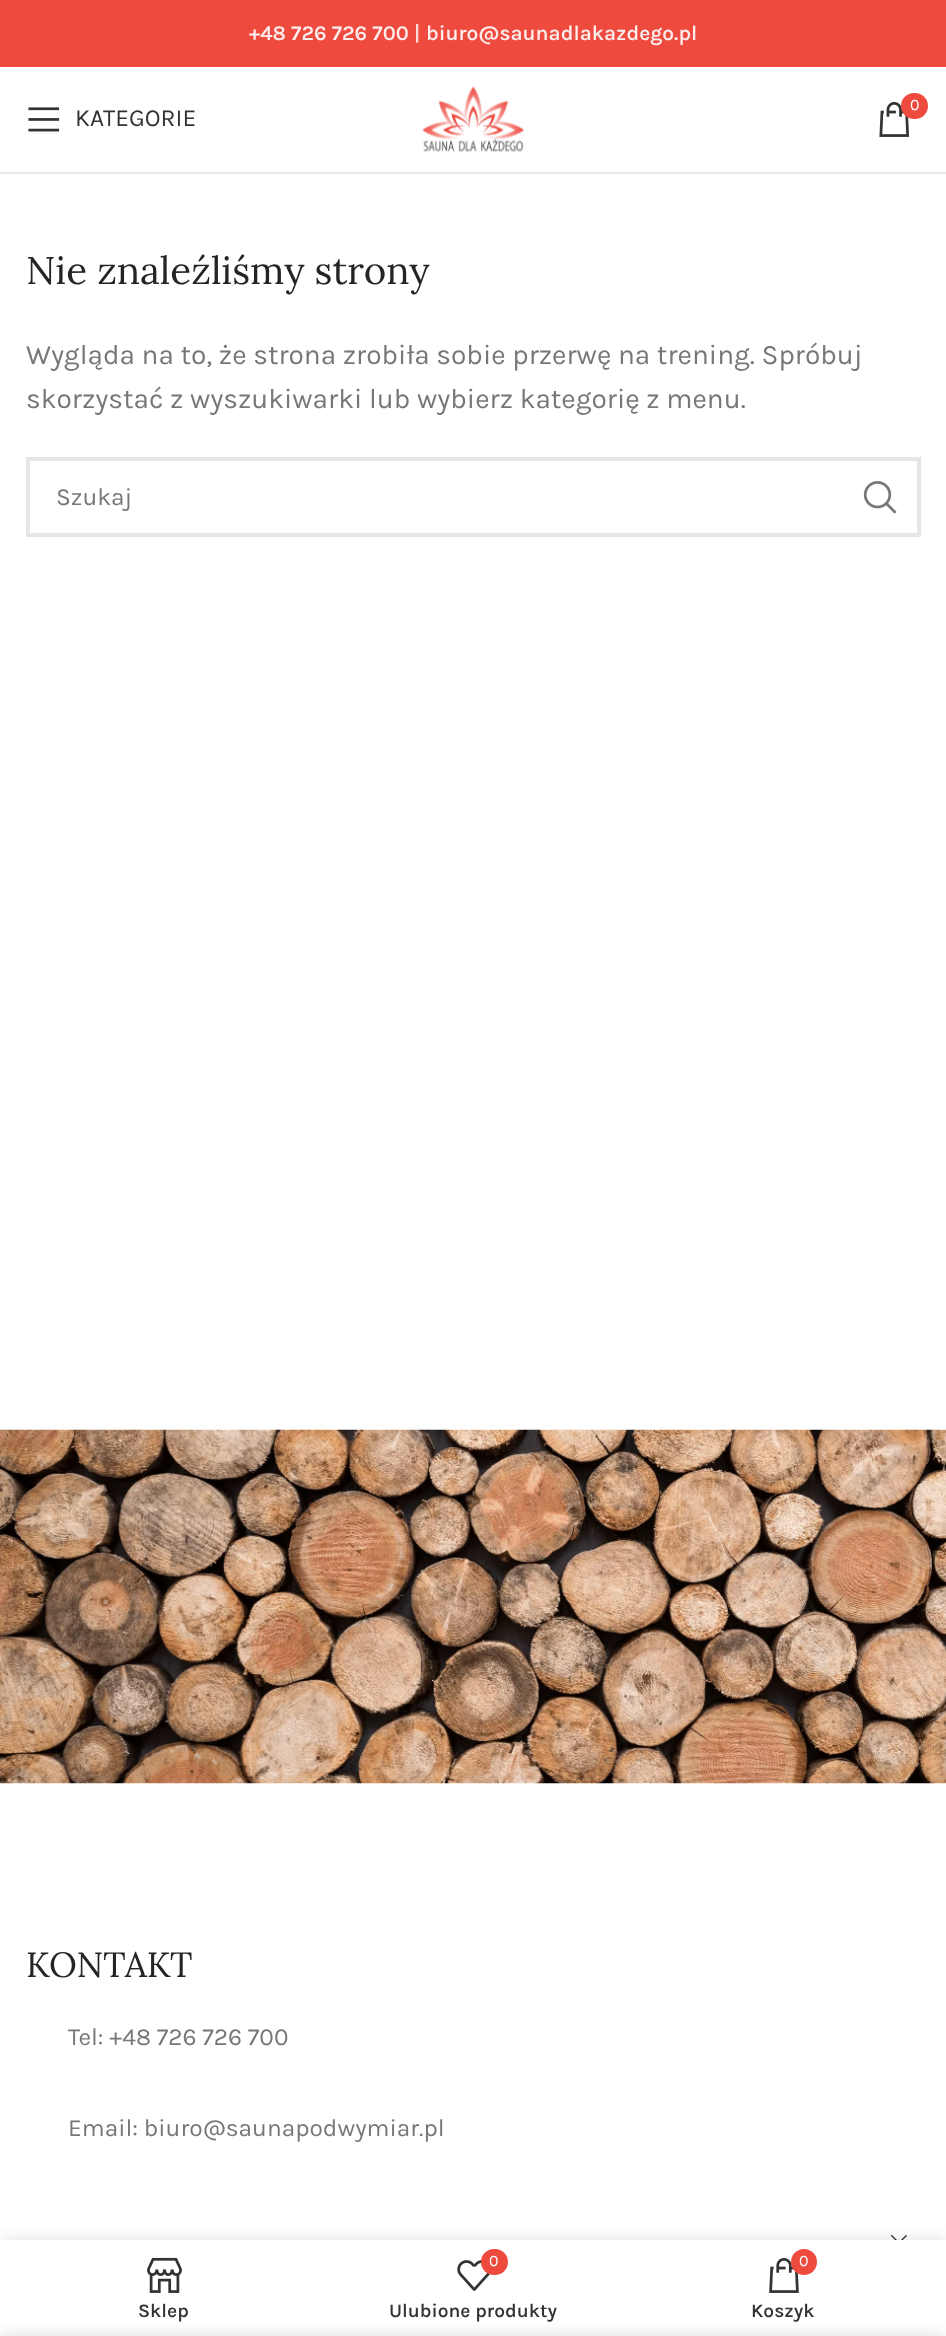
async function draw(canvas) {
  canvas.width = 946
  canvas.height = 2336
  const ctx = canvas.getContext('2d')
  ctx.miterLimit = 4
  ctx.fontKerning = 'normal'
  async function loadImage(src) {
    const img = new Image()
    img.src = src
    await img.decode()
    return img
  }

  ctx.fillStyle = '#fff'
  ctx.fillRect(0, 0, 946, 2336)
  ctx.fillStyle = '#ee4a3e'
  ctx.fillRect(0, 0, 946, 67)
  ctx.font = '600 21px Karla'
  ctx.fillStyle = '#fdedec'
  ctx.fillText('+48 726 726 700', 249, 40)
  ctx.fillStyle = '#fcdbd8'
  ctx.fillText('|', 414, 40)
  ctx.fillStyle = '#fdedec'
  ctx.fillText('biuro@saunadlakazdego.pl', 426, 40)
  ctx.fillStyle = '#e8e8e8'
  ctx.fillRect(0, 172, 946, 2)
  ctx.drawImage(await loadImage('image0.png'), 422, 86, 102, 66)
  ctx.drawImage(await loadImage('image1.png'), 879, 101, 31, 36)
  ctx.fillStyle = '#ee4a3e'
  ctx.beginPath()
  ctx.roundRect(901, 93, 27, 26, 13)
  ctx.fill()
  ctx.font = '16px Karla'
  ctx.fillStyle = '#fff'
  ctx.fillText('0', 910, 110)
  ctx.drawImage(await loadImage('image2.png'), 28, 107, 32, 25)
  ctx.font = '24.5px Karla'
  ctx.fillStyle = '#333'
  ctx.fillText('KATEGORIE', 75, 126)
  ctx.font = '38.5px Lora'
  ctx.fillStyle = '#242424'
  ctx.fillText('Nie znaleźliśmy strony', 26, 284)
  ctx.font = '28px Karla'
  ctx.fillStyle = '#777'
  ctx.fillText('Wygląda na to, że strona zrobiła sobie przerwę na trening. Spróbuj', 26, 364)
  ctx.fillText('skorzystać z wyszukiwarki lub wybierz kategorię z menu.', 26, 408)
  ctx.strokeStyle = '#e6e6e6'
  ctx.lineWidth = 4
  ctx.strokeRect(28, 459, 891, 76)
  ctx.font = '24.5px Karla'
  ctx.fillText('Szukaj', 56, 505)
  ctx.drawImage(await loadImage('image3.png'), 863, 481, 34, 33)
  ctx.drawImage(await loadImage('image4.png'), 0, 1429, 946, 355)
  ctx.font = '35px Lora'
  ctx.fillStyle = '#242424'
  ctx.fillText('KONTAKT', 26, 1977)
  ctx.font = '24.5px Karla'
  ctx.fillStyle = '#777'
  ctx.fillText('Tel: +48 726 726 700', 68, 2045)
  ctx.fillText('Email: biuro@saunapodwymiar.pl', 68, 2136)
  ctx.drawImage(await loadImage('image5.png'), 890, 2234, 17, 6)
  ctx.fillStyle = '#0000001f'
  ctx.filter = 'blur(8px)'
  ctx.beginPath()
  ctx.rect(0, 2240, 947, 96)
  ctx.fill()
  ctx.filter = 'none'
  ctx.fillStyle = '#fff'
  ctx.fillRect(0, 2240, 946, 96)
  ctx.drawImage(await loadImage('image6.png'), 147, 2257, 35, 36)
  ctx.font = '600 19.25px Karla'
  ctx.fillStyle = '#333'
  ctx.fillText('Sklep', 138, 2317)
  ctx.drawImage(await loadImage('image7.png'), 457, 2260, 33, 31)
  ctx.fillStyle = '#ee4a3e'
  ctx.beginPath()
  ctx.roundRect(481, 2249, 27, 26, 13)
  ctx.fill()
  ctx.font = '16px Karla'
  ctx.fillStyle = '#fff'
  ctx.fillText('0', 489, 2266)
  ctx.font = '600 19.25px Karla'
  ctx.fillStyle = '#333'
  ctx.fillText('Ulubione produkty', 389, 2317)
  ctx.drawImage(await loadImage('image8.png'), 769, 2258, 30, 35)
  ctx.fillStyle = '#ee4a3e'
  ctx.beginPath()
  ctx.arc(804, 2262, 13, 0, 2 * Math.PI)
  ctx.fill()
  ctx.font = '16px Karla'
  ctx.fillStyle = '#fff'
  ctx.fillText('0', 799, 2266)
  ctx.font = '600 19.25px Karla'
  ctx.fillStyle = '#333'
  ctx.fillText('Koszyk', 751, 2317)
  ctx.fillStyle = '#00000024'
  ctx.filter = 'blur(8px)'
  ctx.beginPath()
  ctx.rect(0, 2336, 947, 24)
  ctx.fill()
  ctx.filter = 'none'
}

draw(document.querySelector('canvas'))
